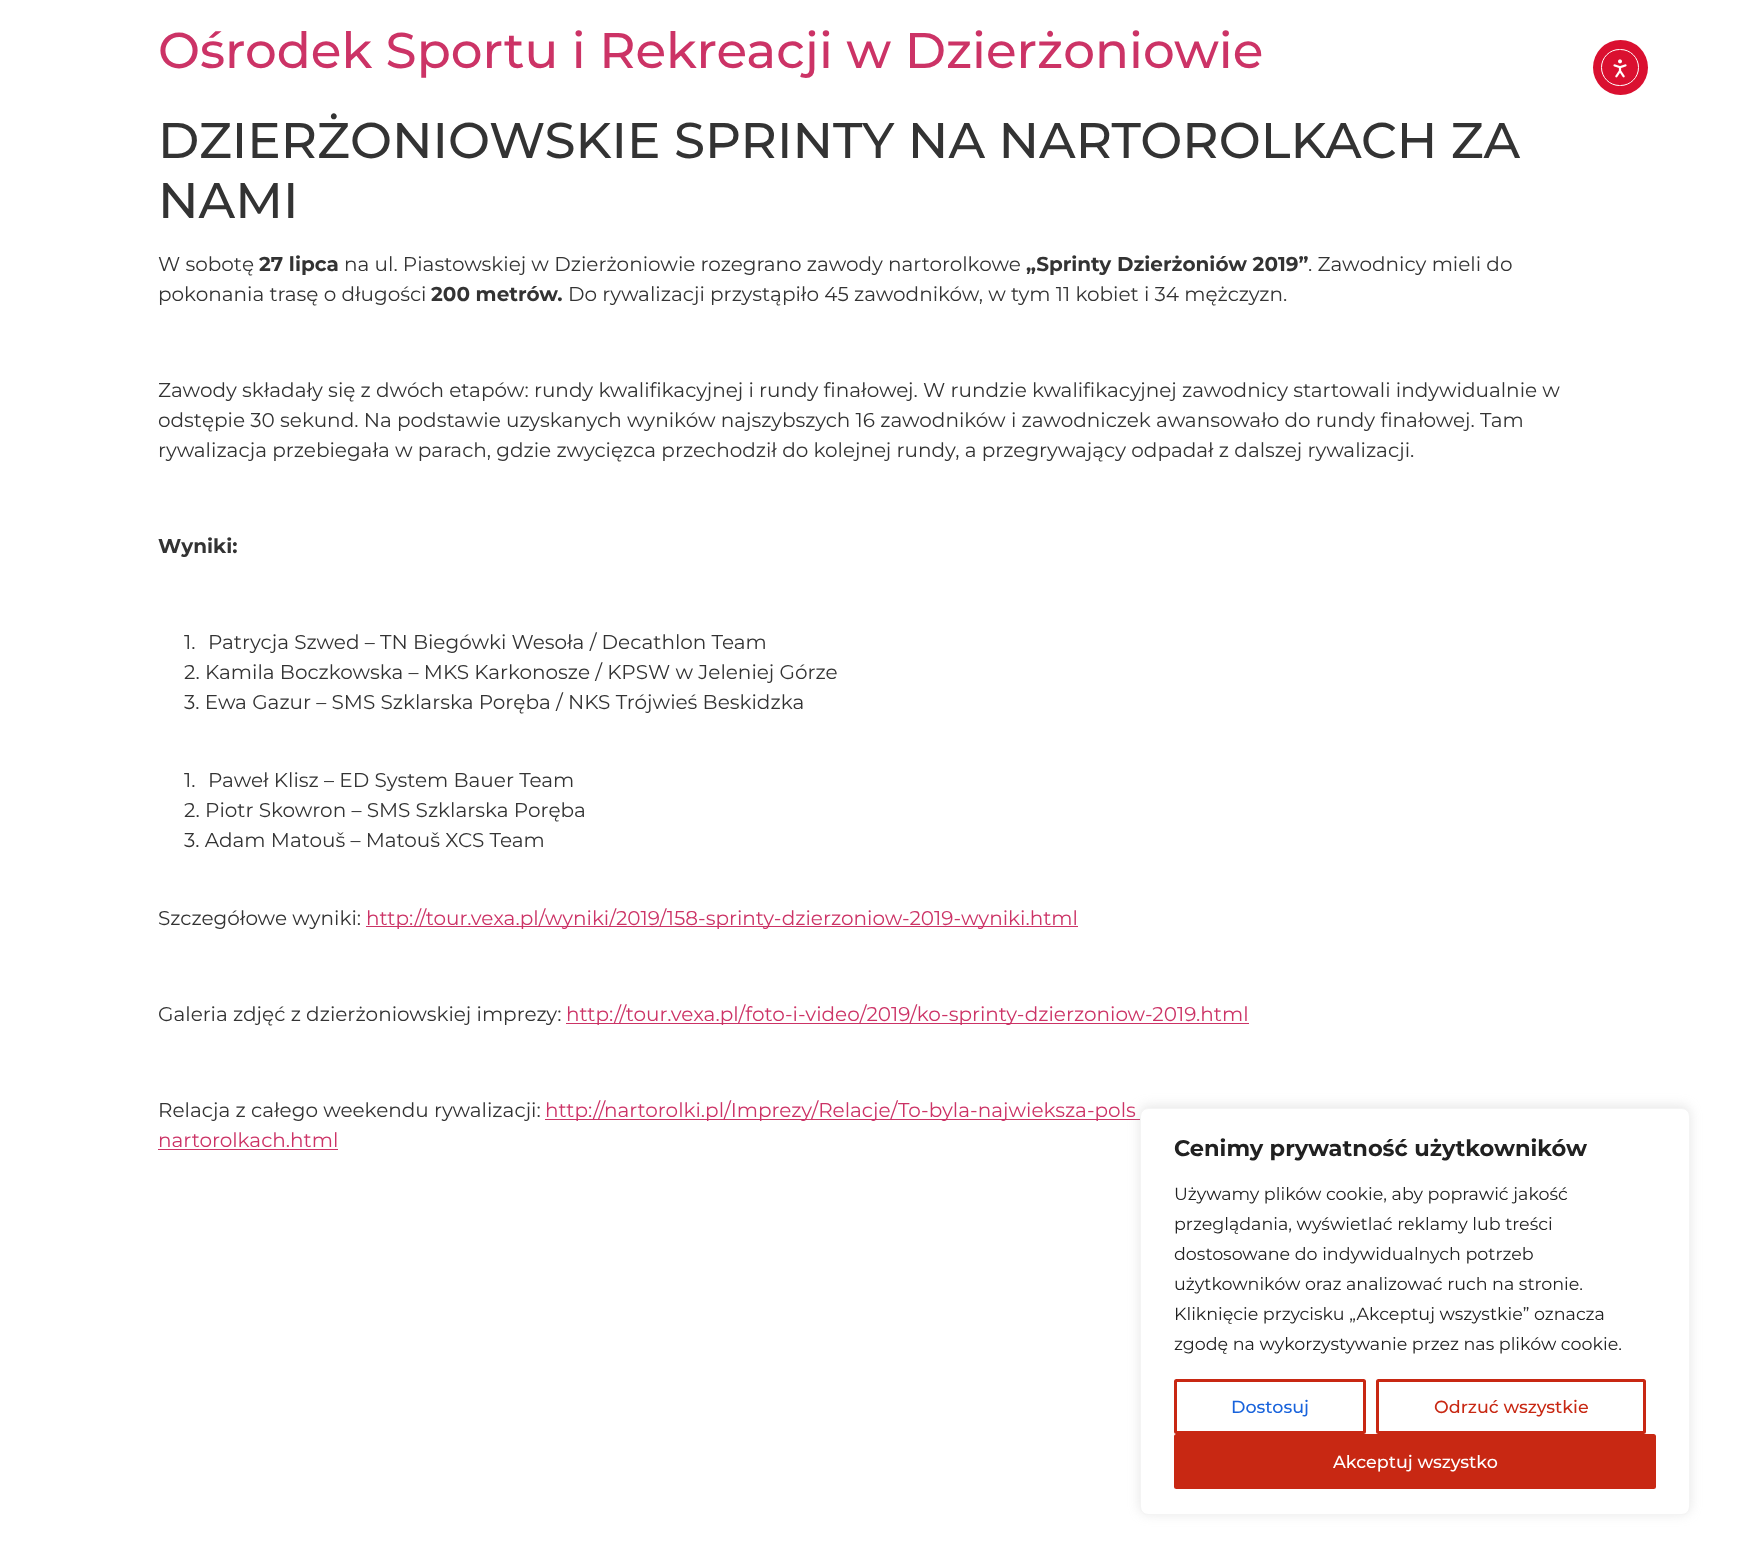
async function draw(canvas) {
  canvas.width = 1740
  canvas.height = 1564
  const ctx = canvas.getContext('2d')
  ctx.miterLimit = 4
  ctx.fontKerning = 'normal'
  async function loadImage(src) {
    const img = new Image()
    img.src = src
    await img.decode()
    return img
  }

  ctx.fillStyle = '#fff'
  ctx.fillRect(0, 0, 1740, 1564)
  ctx.font = '500 50px Montserrat'
  ctx.fillStyle = '#c36'
  ctx.fillText('Ośrodek Sportu i Rekreacji w Dzierżoniowie', 158, 68)
  ctx.fillStyle = '#da1030'
  ctx.beginPath()
  ctx.arc(1620.5, 67.5, 27.5, 0, 2 * Math.PI)
  ctx.fill()
  ctx.beginPath()
  ctx.roundRect(1601.5, 49.5, 37, 36, 18)
  ctx.strokeStyle = '#fff'
  ctx.stroke()
  ctx.drawImage(await loadImage('image0.png'), 1613, 59, 14, 19)
  ctx.fillStyle = '#333'
  ctx.fillText('DZIERŻONIOWSKIE SPRINTY NA NARTOROLKACH ZA', 158, 158)
  ctx.fillText('NAMI', 158, 218)
  ctx.font = '20px Montserrat'
  ctx.fillText('W sobotę', 158, 271)
  ctx.font = 'bold 20px Montserrat'
  ctx.fillText('27 lipca', 259, 271)
  ctx.font = '20px Montserrat'
  ctx.fillText('na ul. Piastowskiej w Dzierżoniowie rozegrano zawody nartorolkowe', 344, 271)
  ctx.font = 'bold 20px Montserrat'
  ctx.fillText('„Sprinty Dzierżoniów 2019”', 1026, 271)
  ctx.font = '20px Montserrat'
  ctx.fillText('. Zawodnicy mieli do', 1308, 271)
  ctx.fillText('pokonania trasę o długości', 158, 301)
  ctx.font = 'bold 20px Montserrat'
  ctx.fillText('200 metrów.', 431, 301)
  ctx.font = '20px Montserrat'
  ctx.fillText('Do rywalizacji przystąpiło 45 zawodników, w tym 11 kobiet i 34 mężczyzn.', 568, 301)
  ctx.fillText('Zawody składały się z dwóch etapów: rundy kwalifikacyjnej i rundy finałowej. W rundzie kwalifikacyjnej zawodnicy startowali indywidualnie w', 158, 397)
  ctx.fillText('odstępie 30 sekund. Na podstawie uzyskanych wyników najszybszych 16 zawodników i zawodniczek awansowało do rundy finałowej. Tam', 158, 427)
  ctx.fillText('rywalizacja przebiegała w parach, gdzie zwycięzca przechodził do kolejnej rundy, a przegrywający odpadał z dalszej rywalizacji.', 158, 457)
  ctx.font = 'bold 20px Montserrat'
  ctx.fillText('Wyniki:', 158, 553)
  ctx.font = '20px Montserrat'
  ctx.fillText('1.', 184, 649)
  ctx.fillText('Patrycja Szwed – TN Biegówki Wesoła / Decathlon Team', 208, 649)
  ctx.fillText('2. Kamila Boczkowska – MKS Karkonosze / KPSW w Jeleniej Górze', 184, 679)
  ctx.fillText('3. Ewa Gazur – SMS Szklarska Poręba / NKS Trójwieś Beskidzka', 184, 709)
  ctx.fillText('1.', 184, 787)
  ctx.fillText('Paweł Klisz – ED System Bauer Team', 208, 787)
  ctx.fillText('2. Piotr Skowron – SMS Szklarska Poręba', 184, 817)
  ctx.fillText('3. Adam Matouš – Matouš XCS Team', 184, 847)
  ctx.fillText('Szczegółowe wyniki:', 158, 925)
  ctx.fillStyle = '#c36'
  ctx.fillRect(366, 926, 712, 1)
  ctx.fillText('http://tour.vexa.pl/wyniki/2019/158-sprinty-dzierzoniow-2019-wyniki.html', 366, 925)
  ctx.fillStyle = '#333'
  ctx.fillText('Galeria zdjęć z dzierżoniowskiej imprezy:', 158, 1021)
  ctx.fillStyle = '#c36'
  ctx.fillRect(566, 1023, 683, 1)
  ctx.fillText('http://tour.vexa.pl/foto-i-video/2019/ko-sprinty-dzierzoniow-2019.html', 566, 1021)
  ctx.fillStyle = '#333'
  ctx.fillText('Relacja z całego weekendu rywalizacji:', 158, 1117)
  ctx.fillStyle = '#c36'
  ctx.fillRect(545, 1119, 595, 1)
  ctx.fillText('http://nartorolki.pl/Imprezy/Relacje/To-byla-najwieksza-pols', 545, 1117)
  ctx.fillText('nartorolkach.html', 158, 1147)
  ctx.fillRect(158, 1149, 180, 1)
  ctx.fillStyle = '#acabab4d'
  ctx.filter = 'blur(6px)'
  ctx.beginPath()
  ctx.roundRect(1140, 1106, 550, 408, 8)
  ctx.fill()
  ctx.filter = 'none'
  ctx.fillStyle = '#fff'
  ctx.beginPath()
  ctx.roundRect(1140.5, 1108.5, 549, 406, 7.5)
  ctx.fill()
  ctx.strokeStyle = '#f4f4f4'
  ctx.stroke()
  ctx.font = 'bold 22.5px Montserrat'
  ctx.fillStyle = '#212121'
  ctx.fillText('Cenimy prywatność użytkowników', 1174, 1156)
  ctx.font = '17.5px Montserrat'
  ctx.fillText('Używamy plików cookie, aby poprawić jakość', 1174, 1200)
  ctx.fillText('przeglądania, wyświetlać reklamy lub treści', 1174, 1230)
  ctx.fillText('dostosowane do indywidualnych potrzeb', 1174, 1260)
  ctx.fillText('użytkowników oraz analizować ruch na stronie.', 1174, 1290)
  ctx.fillText('Kliknięcie przycisku „Akceptuj wszystkie” oznacza', 1174, 1320)
  ctx.fillText('zgodę na wykorzystywanie przez nas plików cookie.', 1174, 1350)
  ctx.beginPath()
  ctx.roundRect(1175.5, 1380.5, 189, 52, 1)
  ctx.strokeStyle = '#c82813'
  ctx.lineWidth = 3
  ctx.stroke()
  ctx.font = '500 17.5px Montserrat'
  ctx.fillStyle = '#1863dc'
  ctx.fillText('Dostosuj', 1231, 1413)
  ctx.beginPath()
  ctx.roundRect(1377.5, 1380.5, 267, 52, 1)
  ctx.stroke()
  ctx.fillStyle = '#c82813'
  ctx.fillText('Odrzuć wszystkie', 1434, 1413)
  ctx.beginPath()
  ctx.roundRect(1175.5, 1435.5, 479, 52, 1)
  ctx.fill()
  ctx.stroke()
  ctx.fillStyle = '#fff'
  ctx.fillText('Akceptuj wszystko', 1333, 1468)
}

draw(document.querySelector('canvas'))
